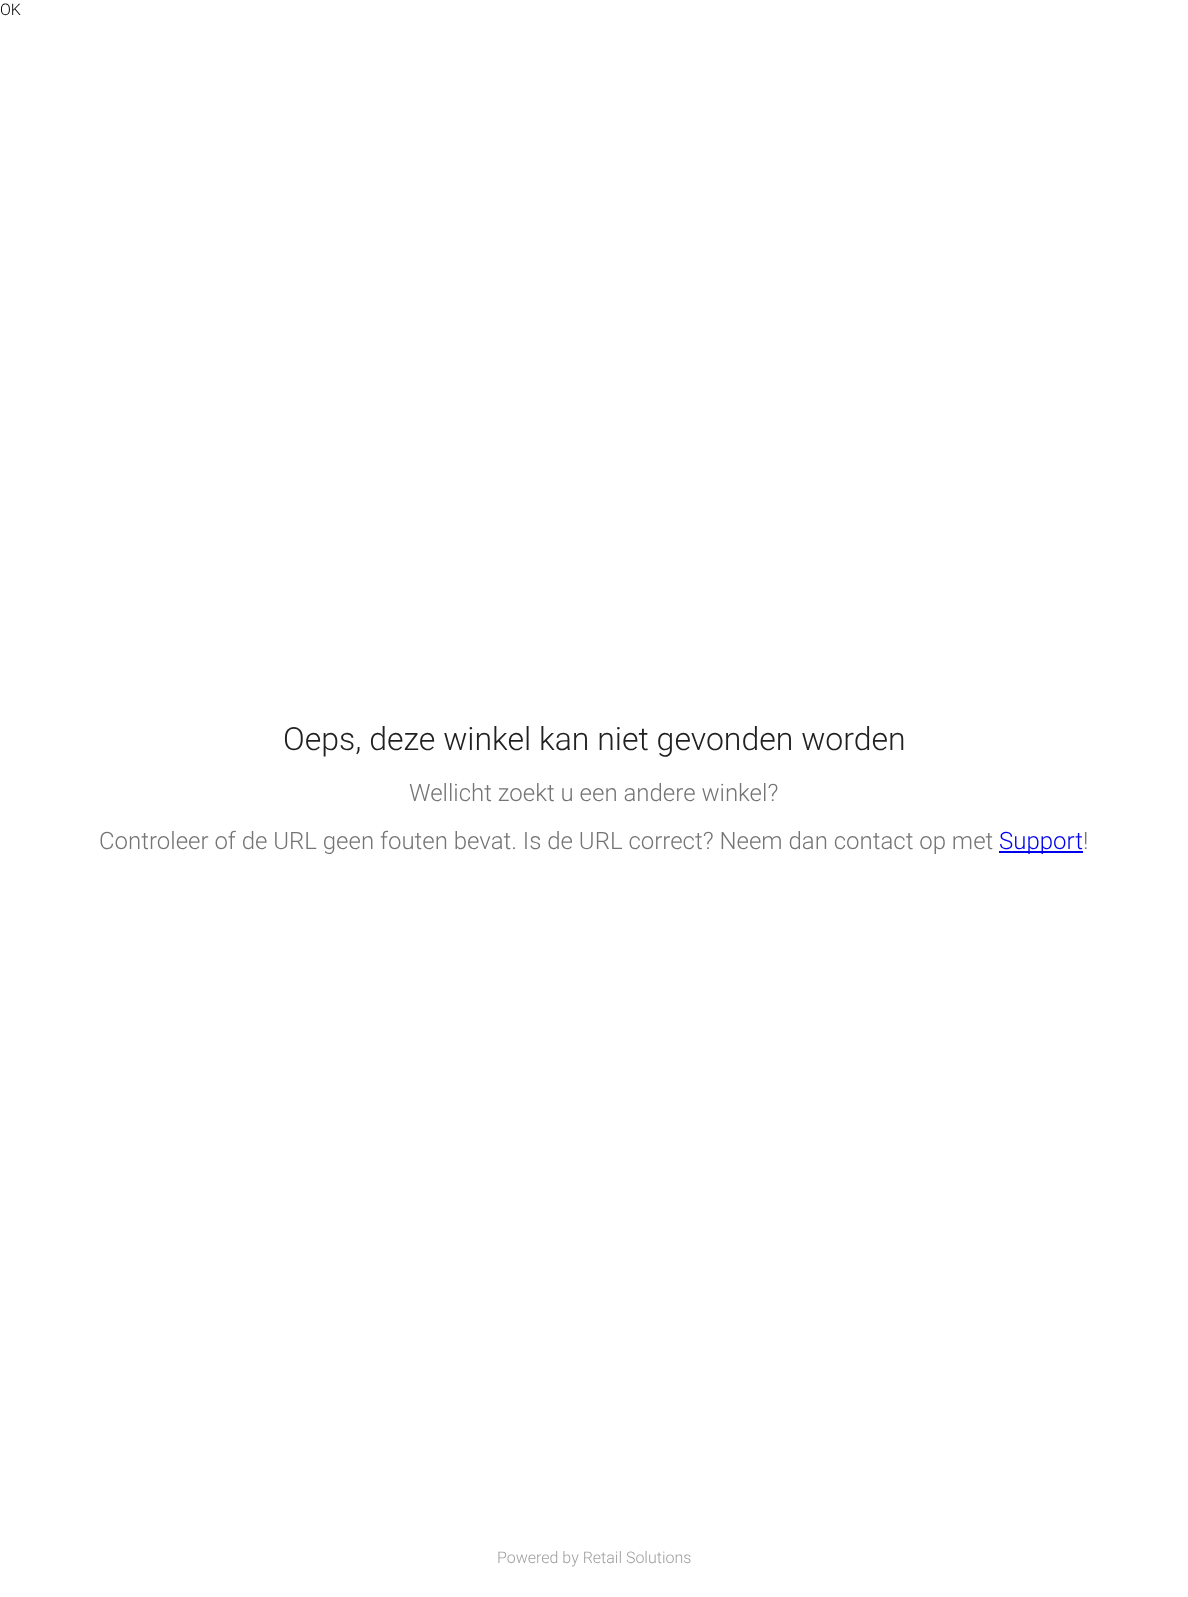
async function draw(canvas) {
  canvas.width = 1188
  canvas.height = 1597
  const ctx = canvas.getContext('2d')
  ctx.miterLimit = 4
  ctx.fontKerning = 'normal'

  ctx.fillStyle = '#fff'
  ctx.fillRect(0, 0, 1188, 1597)
  ctx.font = '300 16px Roboto'
  ctx.fillStyle = '#000'
  ctx.fillText('OK', 0, 15)
  ctx.font = '300 32px Roboto'
  ctx.fillStyle = '#212121'
  ctx.fillText('Oeps, deze winkel kan niet gevonden worden', 283, 750)
  ctx.font = '300 24px Roboto'
  ctx.fillStyle = '#757575'
  ctx.fillText('Wellicht zoekt u een andere winkel?', 409, 801)
  ctx.fillText('Controleer of de URL geen fouten bevat. Is de URL correct? Neem dan contact op met', 99, 849)
  ctx.fillStyle = '#00e'
  ctx.fillRect(999, 851, 84, 2)
  ctx.fillText('Support', 999, 849)
  ctx.fillStyle = '#757575'
  ctx.fillText('!', 1083, 849)
  ctx.font = '300 16px Roboto'
  ctx.fillStyle = '#9e9e9e'
  ctx.fillText('Powered by Retail Solutions', 497, 1563)
}

draw(document.querySelector('canvas'))
